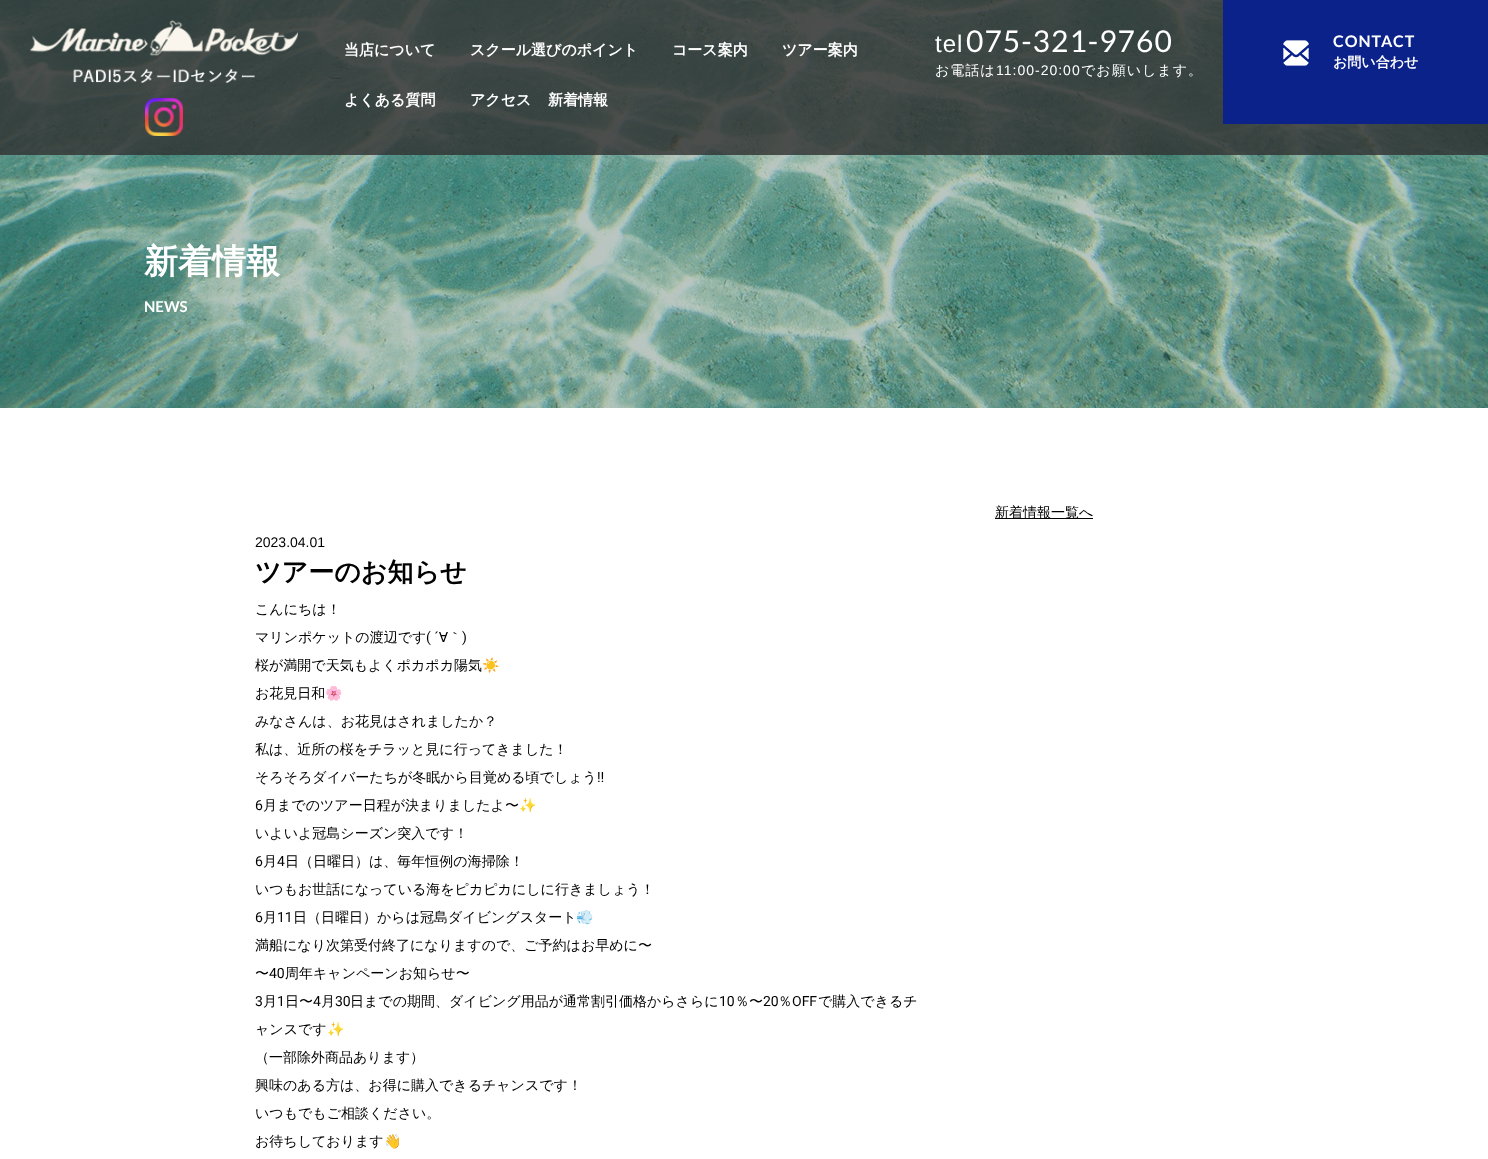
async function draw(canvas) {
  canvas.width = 1488
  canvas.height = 1159
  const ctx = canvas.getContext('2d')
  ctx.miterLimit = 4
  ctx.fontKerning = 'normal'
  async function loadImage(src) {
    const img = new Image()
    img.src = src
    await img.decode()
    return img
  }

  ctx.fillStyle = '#fff'
  ctx.fillRect(0, 0, 1488, 1159)
  ctx.drawImage(await loadImage('image3.png'), 0, 0, 1488, 408)
  ctx.fillStyle = '#2f2f2fcc'
  ctx.fillRect(0, 0, 1488, 155)
  ctx.drawImage(await loadImage('image0.png'), 30, 20, 268, 63)
  ctx.drawImage(await loadImage('image1.png'), 145, 98, 38, 38)
  ctx.font = 'bold 15px WenQuanYi Zen Hei'
  ctx.fillStyle = '#fff'
  ctx.fillText('当店について', 344, 55)
  ctx.fillText('スクール選びのポイント', 470, 55)
  ctx.fillText('コース案内', 672, 55)
  ctx.fillText('ツアー案内', 782, 55)
  ctx.fillText('よくある質問', 344, 105)
  ctx.fillText('アクセス', 470, 105)
  ctx.fillText('新着情報', 548, 105)
  ctx.letterSpacing = '1px'
  ctx.font = '24px Liberation Sans'
  ctx.fillText('tel', 935, 52)
  ctx.font = '30px Lato'
  ctx.fillText('075-321-9760', 966, 52)
  ctx.font = '500 14px WenQuanYi Zen Hei'
  ctx.fillText('お電話は', 935, 75)
  ctx.font = '14px Liberation Sans'
  ctx.fillText('11:00-20:00', 996, 75)
  ctx.font = '500 14px WenQuanYi Zen Hei'
  ctx.fillText('でお願いします。', 1081, 75)
  ctx.fillStyle = '#0b228a'
  ctx.fillRect(1223, 0, 265, 124)
  ctx.drawImage(await loadImage('image2.png'), 1283, 40, 26, 26)
  ctx.font = 'bold 16px Lato'
  ctx.fillStyle = '#fff'
  ctx.fillText('CONTACT', 1333, 47)
  ctx.letterSpacing = '0px'
  ctx.font = 'bold 14px WenQuanYi Zen Hei'
  ctx.fillText('お問い合わせ', 1333, 67)
  ctx.font = 'bold 34px WenQuanYi Zen Hei'
  ctx.fillText('新着情報', 144, 273)
  ctx.font = 'bold 15px Lato'
  ctx.fillText('NEWS', 144, 312)
  ctx.fillStyle = '#000'
  ctx.fillRect(995, 518, 98, 1)
  ctx.font = '500 14px WenQuanYi Zen Hei'
  ctx.fillText('新着情報一覧へ', 995, 517)
  ctx.font = '14px Liberation Sans'
  ctx.fillText('2023.04.01', 255, 547)
  ctx.font = 'bold 26px WenQuanYi Zen Hei'
  ctx.fillText('ツアーのお知らせ', 255, 581)
  ctx.font = '500 14px WenQuanYi Zen Hei'
  ctx.fillText('こんにちは！', 255, 614)
  ctx.fillText('マリンポケットの渡辺です', 255, 642)
  ctx.font = '14px Roboto'
  ctx.fillText('( ´', 426, 642)
  ctx.font = '500 14px WenQuanYi Zen Hei'
  ctx.fillText('∀｀', 439, 642)
  ctx.font = '14px Roboto'
  ctx.fillText(')', 462, 642)
  ctx.font = '500 14px WenQuanYi Zen Hei'
  ctx.fillText('桜が満開で天気もよくポカポカ陽気', 255, 670)
  ctx.font = '14px Noto Color Emoji'
  ctx.fillText('☀️', 482, 670)
  ctx.font = '500 14px WenQuanYi Zen Hei'
  ctx.fillText('お花見日和', 255, 698)
  ctx.font = '14px Noto Color Emoji'
  ctx.fillText('🌸', 325, 698)
  ctx.font = '500 14px WenQuanYi Zen Hei'
  ctx.fillText('みなさんは、お花見はされましたか？', 255, 726)
  ctx.fillText('私は、近所の桜をチラッと見に行ってきました！', 255, 754)
  ctx.fillText('そろそろダイバーたちが冬眠から目覚める頃でしょう', 255, 782)
  ctx.font = '14px Roboto'
  ctx.fillText('‼︎', 597, 782)
  ctx.fillText('6', 255, 810)
  ctx.font = '500 14px WenQuanYi Zen Hei'
  ctx.fillText('月までのツアー日程が決まりましたよ〜', 263, 810)
  ctx.font = '14px Noto Color Emoji'
  ctx.fillText('✨', 519, 810)
  ctx.font = '500 14px WenQuanYi Zen Hei'
  ctx.fillText('いよいよ冠島シーズン突入です！', 255, 838)
  ctx.font = '14px Roboto'
  ctx.fillText('6', 255, 866)
  ctx.font = '500 14px WenQuanYi Zen Hei'
  ctx.fillText('月', 263, 866)
  ctx.font = '14px Roboto'
  ctx.fillText('4', 277, 866)
  ctx.font = '500 14px WenQuanYi Zen Hei'
  ctx.fillText('日（日曜日）は、毎年恒例の海掃除！', 285, 866)
  ctx.fillText('いつもお世話になっている海をピカピカにしに行きましょう！', 255, 894)
  ctx.font = '14px Roboto'
  ctx.fillText('6', 255, 922)
  ctx.font = '500 14px WenQuanYi Zen Hei'
  ctx.fillText('月', 263, 922)
  ctx.font = '14px Roboto'
  ctx.fillText('11', 277, 922)
  ctx.font = '500 14px WenQuanYi Zen Hei'
  ctx.fillText('日（日曜日）からは冠島ダイビングスタート', 293, 922)
  ctx.font = '14px Noto Color Emoji'
  ctx.fillText('💨', 576, 922)
  ctx.font = '500 14px WenQuanYi Zen Hei'
  ctx.fillText('満船になり次第受付終了になりますので、ご予約はお早めに〜', 255, 950)
  ctx.fillText('〜', 255, 978)
  ctx.font = '14px Roboto'
  ctx.fillText('40', 269, 978)
  ctx.font = '500 14px WenQuanYi Zen Hei'
  ctx.fillText('周年キャンペーンお知らせ〜', 285, 978)
  ctx.font = '14px Roboto'
  ctx.fillText('3', 255, 1006)
  ctx.font = '500 14px WenQuanYi Zen Hei'
  ctx.fillText('月', 263, 1006)
  ctx.font = '14px Roboto'
  ctx.fillText('1', 277, 1006)
  ctx.font = '500 14px WenQuanYi Zen Hei'
  ctx.fillText('日〜', 285, 1006)
  ctx.font = '14px Roboto'
  ctx.fillText('4', 313, 1006)
  ctx.font = '500 14px WenQuanYi Zen Hei'
  ctx.fillText('月', 321, 1006)
  ctx.font = '14px Roboto'
  ctx.fillText('30', 335, 1006)
  ctx.font = '500 14px WenQuanYi Zen Hei'
  ctx.fillText('日までの期間、ダイビング用品が通常割引価格からさらに', 350, 1006)
  ctx.font = '14px Roboto'
  ctx.fillText('10', 719, 1006)
  ctx.font = '500 14px WenQuanYi Zen Hei'
  ctx.fillText('％〜', 735, 1006)
  ctx.font = '14px Roboto'
  ctx.fillText('20', 763, 1006)
  ctx.font = '500 14px WenQuanYi Zen Hei'
  ctx.fillText('％', 778, 1006)
  ctx.font = '14px Roboto'
  ctx.fillText('OFF', 792, 1006)
  ctx.font = '500 14px WenQuanYi Zen Hei'
  ctx.fillText('で購入できるチ', 818, 1006)
  ctx.fillText('ャンスです', 255, 1034)
  ctx.font = '14px Noto Color Emoji'
  ctx.fillText('✨', 327, 1034)
  ctx.font = '500 14px WenQuanYi Zen Hei'
  ctx.fillText('（一部除外商品あります）', 255, 1062)
  ctx.fillText('興味のある方は、お得に購入できるチャンスです！', 255, 1090)
  ctx.fillText('いつもでもご相談ください。', 255, 1118)
  ctx.fillText('お待ちしております', 255, 1146)
  ctx.font = '14px Noto Color Emoji'
  ctx.fillText('👋', 384, 1146)
}

draw(document.querySelector('canvas'))
